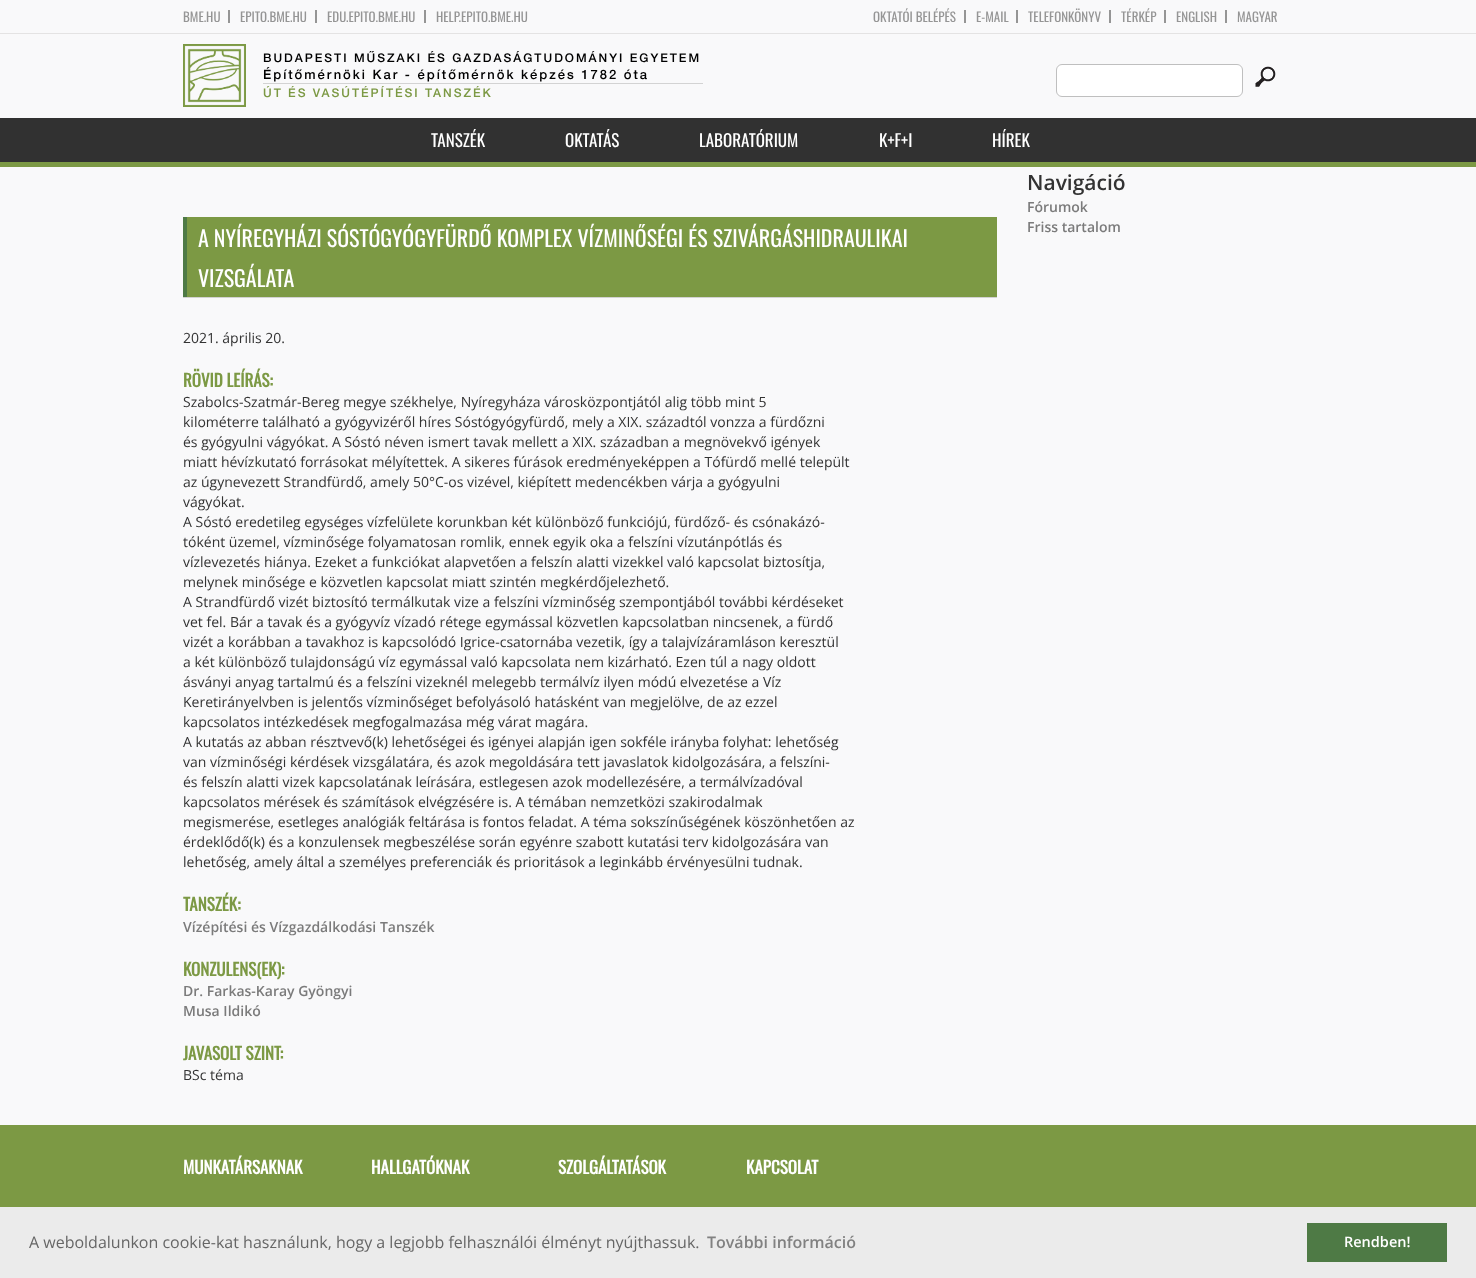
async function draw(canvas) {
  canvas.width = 1476
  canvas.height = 1278
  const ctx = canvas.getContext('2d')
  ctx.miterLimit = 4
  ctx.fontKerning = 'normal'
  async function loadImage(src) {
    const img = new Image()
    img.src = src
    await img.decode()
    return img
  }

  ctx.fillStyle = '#f9f9fa'
  ctx.fillRect(0, 0, 1476, 1278)
  ctx.fillStyle = '#e4e3e3'
  ctx.fillRect(0, 33, 1476, 1)
  ctx.font = '13px Oswald'
  ctx.fillStyle = '#959595'
  ctx.fillText('BME.HU', 183, 22)
  ctx.fillRect(228, 10, 2, 13)
  ctx.fillText('EPITO.BME.HU', 240, 22)
  ctx.fillRect(315, 10, 2, 13)
  ctx.fillText('EDU.EPITO.BME.HU', 327, 22)
  ctx.fillRect(424, 10, 2, 13)
  ctx.fillText('HELP.EPITO.BME.HU', 436, 22)
  ctx.fillText('OKTATÓI BELÉPÉS', 873, 22)
  ctx.fillRect(964, 10, 2, 13)
  ctx.fillText('E-MAIL', 976, 22)
  ctx.fillRect(1016, 10, 2, 13)
  ctx.fillText('TELEFONKÖNYV', 1028, 22)
  ctx.fillRect(1109, 10, 2, 13)
  ctx.fillText('TÉRKÉP', 1121, 22)
  ctx.fillRect(1164, 10, 2, 13)
  ctx.fillText('ENGLISH', 1176, 22)
  ctx.fillRect(1225, 10, 2, 13)
  ctx.fillText('MAGYAR', 1237, 22)
  ctx.drawImage(await loadImage('image0.png'), 183, 44, 63, 63)
  ctx.letterSpacing = '2px'
  ctx.font = '500 12px Helvetica Neue'
  ctx.fillStyle = '#000'
  ctx.fillText('BUDAPESTI MŰSZAKI ÉS GAZDASÁGTUDOMÁNYI EGYETEM', 263, 62)
  ctx.font = '500 13px Helvetica Neue'
  ctx.fillText('Építőmérnöki Kar - építőmérnök képzés 1782 óta', 263, 79)
  ctx.fillStyle = '#d3d3d3'
  ctx.fillRect(263, 83, 440, 1)
  ctx.font = '500 12px Helvetica Neue'
  ctx.fillStyle = '#7c9944'
  ctx.fillText('ÚT ÉS VASÚTÉPÍTÉSI TANSZÉK', 263, 97)
  ctx.fillStyle = '#fff'
  ctx.beginPath()
  ctx.roundRect(1056.5, 64.5, 186, 32, 5.5)
  ctx.fill()
  ctx.strokeStyle = '#bfbfbf'
  ctx.stroke()
  ctx.drawImage(await loadImage('image1.png'), 1255, 66, 21, 21)
  ctx.fillStyle = '#313131'
  ctx.fillRect(0, 118, 1476, 44)
  ctx.fillStyle = '#7c9944'
  ctx.fillRect(0, 162, 1476, 5)
  ctx.letterSpacing = '0px'
  ctx.font = '17px Oswald'
  ctx.fillStyle = '#fff'
  ctx.fillText('TANSZÉK', 431, 147)
  ctx.fillText('OKTATÁS', 565, 147)
  ctx.fillText('LABORATÓRIUM', 699, 147)
  ctx.fillText('K+F+I', 879, 147)
  ctx.fillText('HÍREK', 992, 147)
  ctx.font = '600 21px Open Sans'
  ctx.fillStyle = '#333'
  ctx.fillText('Navigáció', 1027, 190)
  ctx.font = '600 14px Open Sans'
  ctx.fillStyle = '#7b7b7b'
  ctx.fillText('Fórumok', 1027, 212)
  ctx.fillText('Friss tartalom', 1027, 232)
  ctx.fillStyle = '#d2d2d2'
  ctx.fillRect(183, 297, 814, 1)
  ctx.fillStyle = '#7c9944'
  ctx.fillRect(187, 217, 810, 80)
  ctx.fillStyle = '#4e7a45'
  ctx.fillRect(183, 217, 4, 80)
  ctx.font = '22px Oswald'
  ctx.fillStyle = '#fff'
  ctx.fillText('A NYÍREGYHÁZI SÓSTÓGYÓGYFÜRDŐ KOMPLEX VÍZMINŐSÉGI ÉS SZIVÁRGÁSHIDRAULIKAI', 198, 247)
  ctx.fillText('VIZSGÁLATA', 198, 287)
  ctx.font = '14px Open Sans'
  ctx.fillStyle = '#333'
  ctx.fillText('2021. április 20.', 183, 343)
  ctx.font = 'bold 17px Oswald'
  ctx.fillStyle = '#7c9944'
  ctx.fillText('RÖVID LEÍRÁS:', 183, 387)
  ctx.font = '14px Open Sans'
  ctx.fillStyle = '#333'
  ctx.fillText('Szabolcs-Szatmár-Bereg megye székhelye, Nyíregyháza városközpontjától alig több mint 5', 183, 407)
  ctx.fillText('kilométerre található a gyógyvizéről híres Sóstógyógyfürdő, mely a XIX. századtól vonzza a fürdőzni', 183, 427)
  ctx.fillText('és gyógyulni vágyókat. A Sóstó néven ismert tavak mellett a XIX. században a megnövekvő igények', 183, 447)
  ctx.fillText('miatt hévízkutató forrásokat mélyítettek. A sikeres fúrások eredményeképpen a Tófürdő mellé települt', 183, 467)
  ctx.fillText('az úgynevezett Strandfürdő, amely 50°C-os vizével, kiépített medencékben várja a gyógyulni', 183, 487)
  ctx.fillText('vágyókat.', 183, 507)
  ctx.fillText('A Sóstó eredetileg egységes vízfelülete korunkban két különböző funkciójú, fürdőző- és csónakázó-', 183, 527)
  ctx.fillText('tóként üzemel, vízminősége folyamatosan romlik, ennek egyik oka a felszíni vízutánpótlás és', 183, 547)
  ctx.fillText('vízlevezetés hiánya. Ezeket a funkciókat alapvetően a felszín alatti vizekkel való kapcsolat biztosítja,', 183, 567)
  ctx.fillText('melynek minősége e közvetlen kapcsolat miatt szintén megkérdőjelezhető.', 183, 587)
  ctx.fillText('A Strandfürdő vizét biztosító termálkutak vize a felszíni vízminőség szempontjából további kérdéseket', 183, 607)
  ctx.fillText('vet fel. Bár a tavak és a gyógyvíz vízadó rétege egymással közvetlen kapcsolatban nincsenek, a fürdő', 183, 627)
  ctx.fillText('vizét a korábban a tavakhoz is kapcsolódó Igrice-csatornába vezetik, így a talajvízáramláson keresztül', 183, 647)
  ctx.fillText('a két különböző tulajdonságú víz egymással való kapcsolata nem kizárható. Ezen túl a nagy oldott', 183, 667)
  ctx.fillText('ásványi anyag tartalmú és a felszíni vizeknél melegebb termálvíz ilyen módú elvezetése a Víz', 183, 687)
  ctx.fillText('Keretirányelvben is jelentős vízminőséget befolyásoló hatásként van megjelölve, de az ezzel', 183, 707)
  ctx.fillText('kapcsolatos intézkedések megfogalmazása még várat magára.', 183, 727)
  ctx.fillText('A kutatás az abban résztvevő(k) lehetőségei és igényei alapján igen sokféle irányba folyhat: lehetőség', 183, 747)
  ctx.fillText('van vízminőségi kérdések vizsgálatára, és azok megoldására tett javaslatok kidolgozására, a felszíni-', 183, 767)
  ctx.fillText('és felszín alatti vizek kapcsolatának leírására, estlegesen azok modellezésére, a termálvízadóval', 183, 787)
  ctx.fillText('kapcsolatos mérések és számítások elvégzésére is. A témában nemzetközi szakirodalmak', 183, 807)
  ctx.fillText('megismerése, esetleges analógiák feltárása is fontos feladat. A téma sokszínűségének köszönhetően az', 183, 827)
  ctx.fillText('érdeklődő(k) és a konzulensek megbeszélése során egyénre szabott kutatási terv kidolgozására van', 183, 847)
  ctx.fillText('lehetőség, amely által a személyes preferenciák és prioritások a leginkább érvényesülni tudnak.', 183, 867)
  ctx.font = 'bold 17px Oswald'
  ctx.fillStyle = '#7c9944'
  ctx.fillText('TANSZÉK:', 183, 911)
  ctx.font = '600 14px Open Sans'
  ctx.fillStyle = '#7b7b7b'
  ctx.fillText('Vízépítési és Vízgazdálkodási Tanszék', 183, 932)
  ctx.font = 'bold 17px Oswald'
  ctx.fillStyle = '#7c9944'
  ctx.fillText('KONZULENS(EK):', 183, 976)
  ctx.font = '600 14px Open Sans'
  ctx.fillStyle = '#7b7b7b'
  ctx.fillText('Dr. Farkas-Karay Gyöngyi', 183, 996)
  ctx.fillText('Musa Ildikó', 183, 1016)
  ctx.font = 'bold 17px Oswald'
  ctx.fillStyle = '#7c9944'
  ctx.fillText('JAVASOLT SZINT:', 183, 1060)
  ctx.font = '14px Open Sans'
  ctx.fillStyle = '#333'
  ctx.fillText('BSc téma', 183, 1080)
  ctx.fillStyle = '#7c9944'
  ctx.fillRect(0, 1125, 1476, 82)
  ctx.font = 'bold 17px Oswald'
  ctx.fillStyle = '#fff'
  ctx.fillText('MUNKATÁRSAKNAK', 183, 1174)
  ctx.fillText('HALLGATÓKNAK', 371, 1174)
  ctx.fillText('SZOLGÁLTATÁSOK', 558, 1174)
  ctx.fillText('KAPCSOLAT', 746, 1174)
  ctx.fillStyle = '#ebebeb'
  ctx.fillRect(0, 1207, 1476, 71)
  ctx.font = '16px Open Sans'
  ctx.fillStyle = '#666'
  ctx.fillText('A weboldalunkon cookie-kat használunk, hogy a legjobb felhasználói élményt nyújthassuk.', 29, 1248)
  ctx.font = '600 16px Open Sans'
  ctx.fillStyle = '#818181'
  ctx.fillText('További információ', 707, 1248)
  ctx.fillStyle = '#4e7a45'
  ctx.fillRect(1307, 1223, 140, 39)
  ctx.font = '600 14.5px Open Sans'
  ctx.fillStyle = '#fff'
  ctx.fillText('Rendben!', 1344, 1247)
}

draw(document.querySelector('canvas'))
